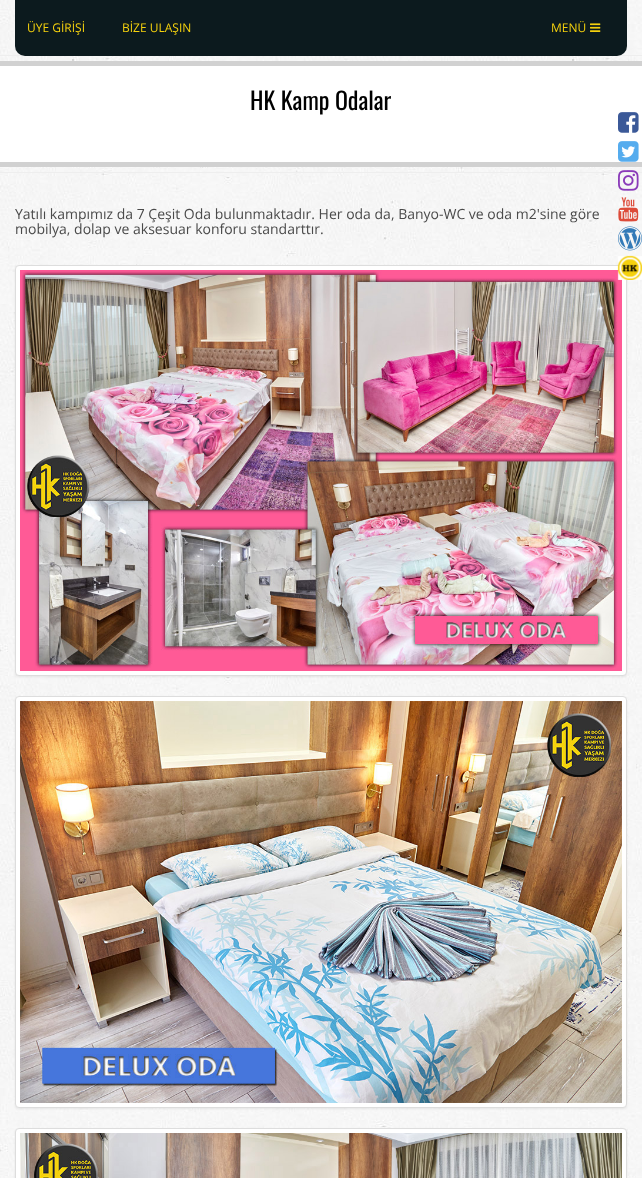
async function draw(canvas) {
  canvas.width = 642
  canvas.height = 1178
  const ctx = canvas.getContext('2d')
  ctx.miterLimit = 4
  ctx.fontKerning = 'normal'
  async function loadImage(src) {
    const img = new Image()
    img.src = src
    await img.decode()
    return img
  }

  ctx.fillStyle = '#fff'
  ctx.fillRect(0, 0, 642, 1178)
  ctx.drawImage(await loadImage('image0.png'), 0, 0, 642, 1178)
  ctx.fillStyle = '#eee'
  ctx.fillRect(0, 55, 642, 1)
  ctx.fillStyle = '#0c1a1e'
  ctx.beginPath()
  ctx.roundRect(15, 0, 612, 56, [0, 0, 10, 10])
  ctx.fill()
  ctx.font = '12px Open Sans'
  ctx.fillStyle = '#f5d10d'
  ctx.fillText('ÜYE GİRİŞİ', 27, 32)
  ctx.fillText('BİZE ULAŞIN', 122, 32)
  ctx.fillText('MENÜ', 551, 32)
  ctx.drawImage(await loadImage('image1.png'), 590, 23, 11, 9)
  ctx.fillStyle = '#fff'
  ctx.fillRect(0, 66, 642, 96)
  ctx.fillStyle = '#d1d1d1'
  ctx.fillRect(0, 61, 642, 5)
  ctx.fillRect(0, 162, 642, 5)
  ctx.font = '24px Oswald'
  ctx.fillStyle = '#000'
  ctx.fillText('HK Kamp Odalar', 250, 110)
  ctx.drawImage(await loadImage('image2.png'), 618, 112, 21, 21)
  ctx.drawImage(await loadImage('image3.png'), 618, 141, 21, 21)
  ctx.fillStyle = '#eee'
  ctx.fillRect(0, 172, 642, 1)
  ctx.drawImage(await loadImage('image4.png'), 618, 170, 21, 21)
  ctx.drawImage(await loadImage('image5.png'), 618, 197, 21, 25)
  ctx.drawImage(await loadImage('image6.png'), 618, 226, 24, 25)
  ctx.fillStyle = '#00000012'
  ctx.filter = 'blur(1px)'
  ctx.beginPath()
  ctx.roundRect(15, 266, 612, 411, 4)
  ctx.fill()
  ctx.filter = 'none'
  ctx.fillStyle = '#fff'
  ctx.beginPath()
  ctx.roundRect(15.5, 265.5, 611, 410, 3.5)
  ctx.fill()
  ctx.strokeStyle = '#ddd'
  ctx.stroke()
  ctx.drawImage(await loadImage('image8.png'), 20, 270, 602, 401)
  ctx.drawImage(await loadImage('image7.png'), 617, 255, 25, 25)
  ctx.font = '14px Open Sans'
  ctx.fillStyle = '#4a4a4a'
  ctx.fillText('Yatılı kampımız da 7 Çeşit Oda bulunmaktadır. Her oda da, Banyo-WC ve oda m2\'sine göre', 15, 219)
  ctx.fillText('mobilya, dolap ve aksesuar konforu standarttır.', 15, 234)
  ctx.fillStyle = '#00000012'
  ctx.filter = 'blur(1px)'
  ctx.beginPath()
  ctx.roundRect(15, 697, 612, 412, 4)
  ctx.fill()
  ctx.filter = 'none'
  ctx.fillStyle = '#fff'
  ctx.beginPath()
  ctx.roundRect(15.5, 696.5, 611, 411, 3.5)
  ctx.fill()
  ctx.stroke()
  ctx.drawImage(await loadImage('image9.png'), 20, 701, 602, 402)
  ctx.fillStyle = '#00000012'
  ctx.filter = 'blur(1px)'
  ctx.beginPath()
  ctx.roundRect(15, 1129, 612, 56, 4)
  ctx.fill()
  ctx.filter = 'none'
  ctx.fillStyle = '#fff'
  ctx.beginPath()
  ctx.roundRect(15.5, 1128.5, 611, 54, 3.5)
  ctx.fill()
  ctx.stroke()
  ctx.drawImage(await loadImage('image10.png'), 20, 1133, 602, 45)
}

draw(document.querySelector('canvas'))
